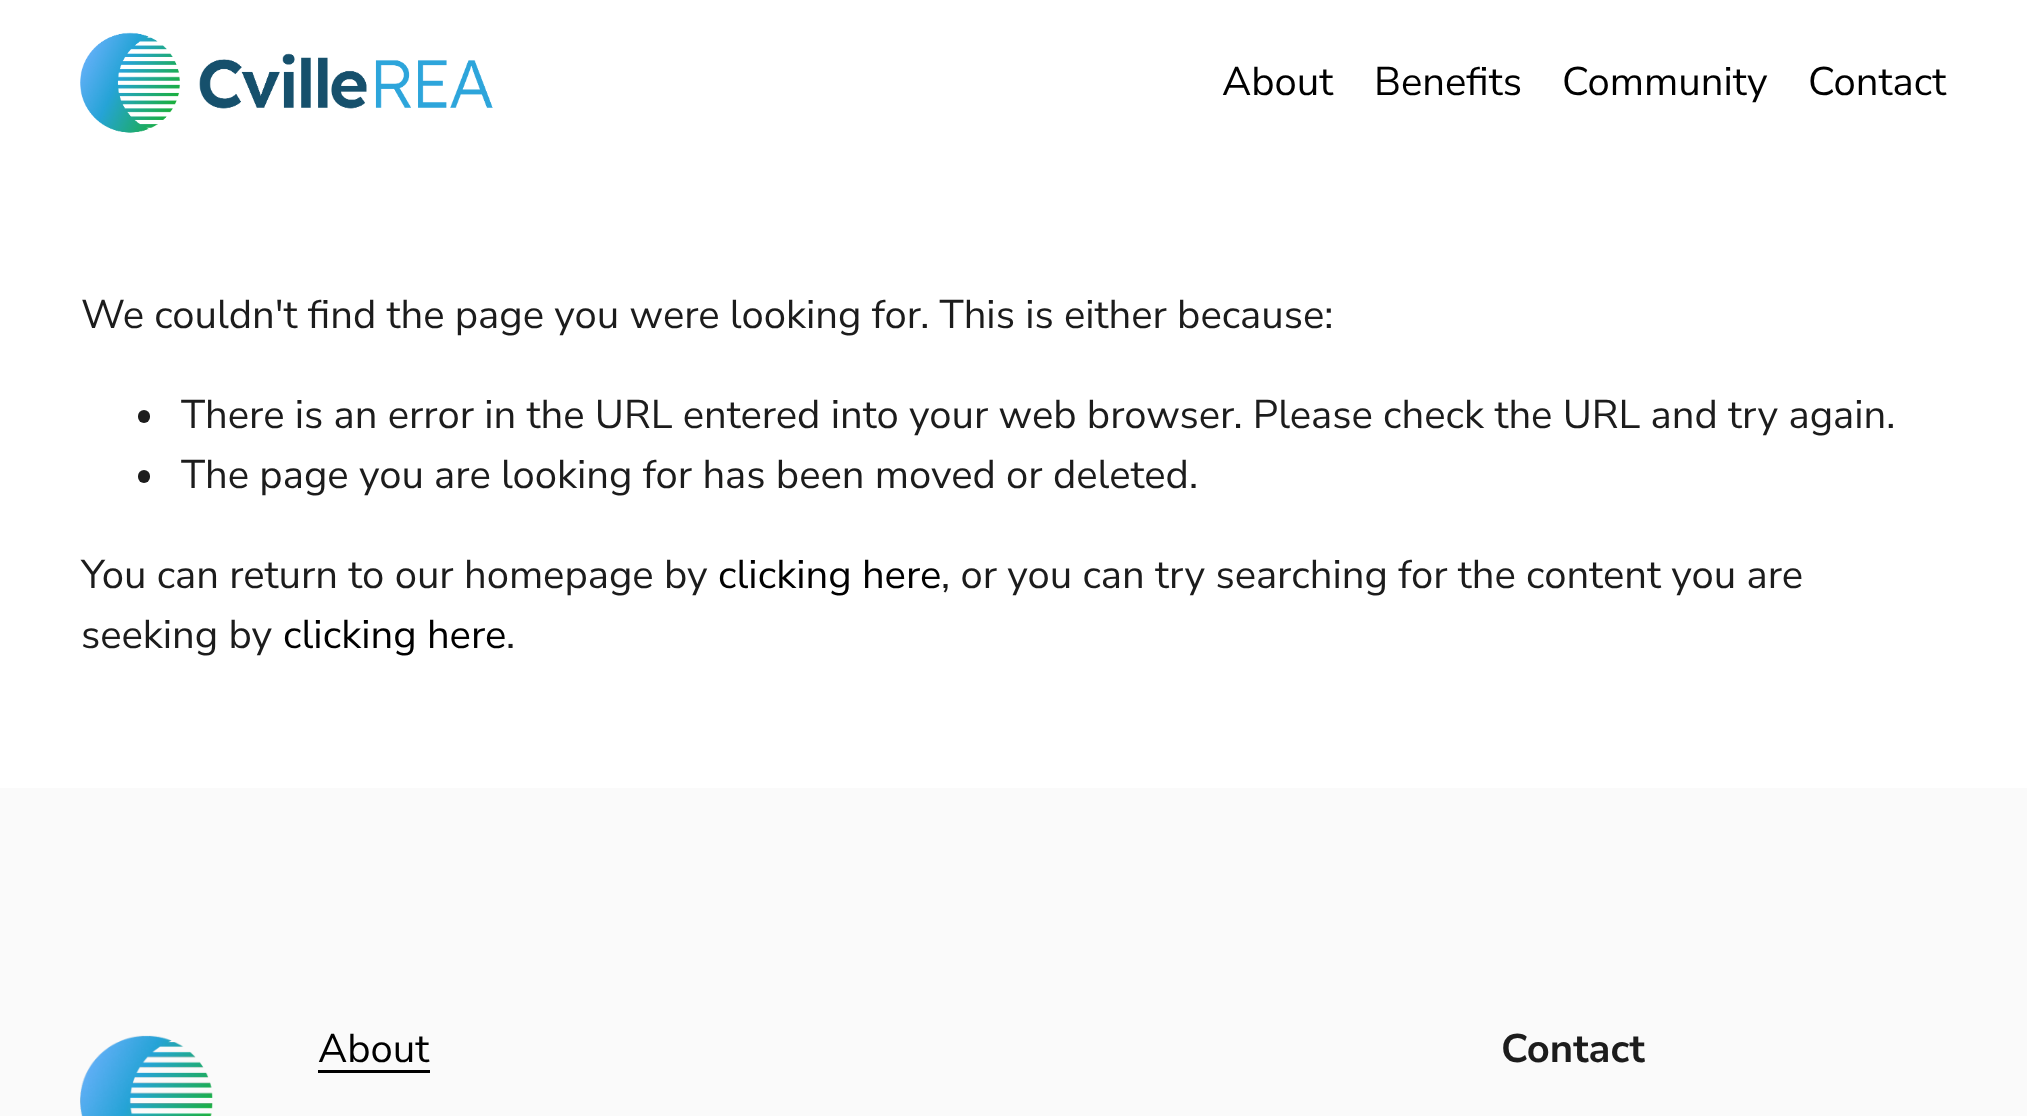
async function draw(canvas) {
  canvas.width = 2027
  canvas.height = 1116
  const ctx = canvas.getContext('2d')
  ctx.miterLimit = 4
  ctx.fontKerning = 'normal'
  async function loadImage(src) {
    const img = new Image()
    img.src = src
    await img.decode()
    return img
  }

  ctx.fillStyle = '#fff'
  ctx.fillRect(0, 0, 2027, 1116)
  ctx.drawImage(await loadImage('image0.png'), 80, 32, 413, 101)
  ctx.font = '40px Nunito Sans'
  ctx.fillStyle = '#000'
  ctx.fillText('About', 1222, 95)
  ctx.fillText('Benefits', 1374, 95)
  ctx.fillText('Community', 1562, 95)
  ctx.fillText('Contact', 1808, 95)
  ctx.fillStyle = '#1c1c1c'
  ctx.fillText('We couldn\'t find the page you were looking for. This is either because:', 81, 328)
  ctx.beginPath()
  ctx.roundRect(138, 410, 12, 13, 6)
  ctx.fill()
  ctx.fillText('There is an error in the URL entered into your web browser. Please check the URL and try again.', 181, 428)
  ctx.beginPath()
  ctx.roundRect(138, 470, 12, 13, 6)
  ctx.fill()
  ctx.fillText('The page you are looking for has been moved or deleted.', 181, 488)
  ctx.fillText('You can return to our homepage by', 81, 588)
  ctx.fillStyle = '#000'
  ctx.fillText('clicking here', 718, 588)
  ctx.fillStyle = '#1c1c1c'
  ctx.fillText(', or you can try searching for the content you are', 941, 588)
  ctx.fillText('seeking by', 81, 648)
  ctx.fillStyle = '#000'
  ctx.fillText('clicking here', 283, 648)
  ctx.fillStyle = '#1c1c1c'
  ctx.fillText('.', 506, 648)
  ctx.fillStyle = '#fafafa'
  ctx.fillRect(0, 788, 2027, 328)
  ctx.drawImage(await loadImage('image1.png'), 80, 1035, 133, 81)
  ctx.fillStyle = '#000'
  ctx.fillText('About', 318, 1062)
  ctx.fillRect(318, 1070, 112, 3)
  ctx.font = 'bold 40px Nunito Sans'
  ctx.fillStyle = '#1c1c1c'
  ctx.fillText('Contact', 1501, 1062)
}

draw(document.querySelector('canvas'))
